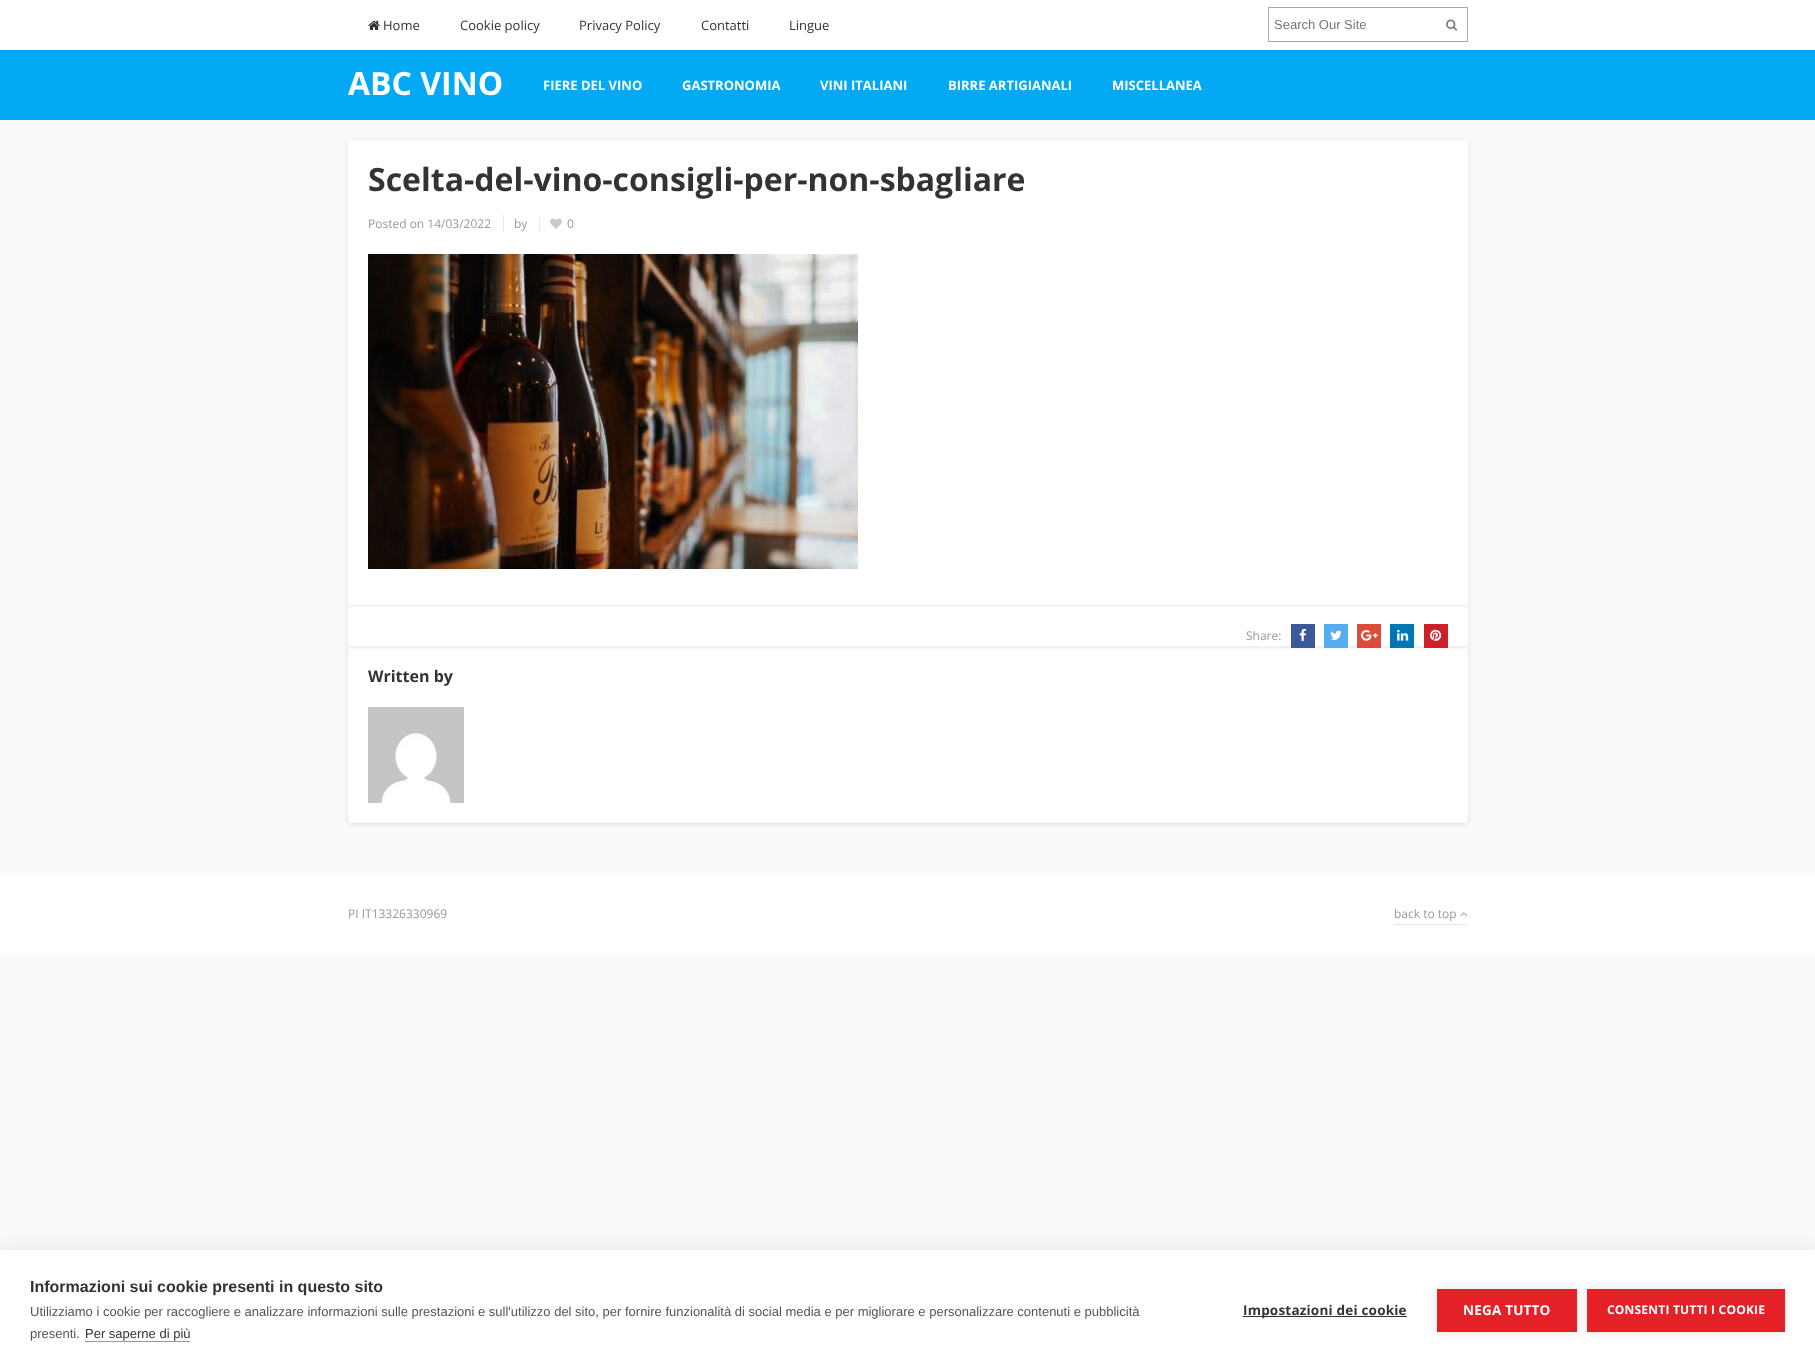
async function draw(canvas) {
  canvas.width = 1815
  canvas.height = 1370
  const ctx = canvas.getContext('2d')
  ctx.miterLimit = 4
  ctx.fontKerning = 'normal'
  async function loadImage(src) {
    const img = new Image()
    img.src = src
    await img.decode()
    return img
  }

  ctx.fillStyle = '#fafafc'
  ctx.fillRect(0, 0, 1815, 1370)
  ctx.fillStyle = '#fff'
  ctx.fillRect(0, 0, 1815, 50)
  ctx.drawImage(await loadImage('image0.png'), 368, 20, 12, 10)
  ctx.font = '13px Open Sans'
  ctx.fillStyle = '#333'
  ctx.fillText('Home', 383, 30)
  ctx.fillText('Cookie policy', 460, 30)
  ctx.fillText('Privacy Policy', 579, 30)
  ctx.fillText('Contatti', 701, 30)
  ctx.fillText('Lingue', 789, 30)
  ctx.strokeStyle = '#a9a9a9'
  ctx.strokeRect(1268.5, 7.5, 199, 34)
  ctx.font = '13px Liberation Sans'
  ctx.fillStyle = '#757575'
  ctx.fillText('Search Our Site', 1274, 29)
  ctx.drawImage(await loadImage('image1.png'), 1446, 19, 12, 12)
  ctx.fillStyle = '#03a9f4'
  ctx.fillRect(0, 50, 1815, 70)
  ctx.font = 'bold 32px Open Sans'
  ctx.fillStyle = '#fff'
  ctx.fillText('ABC VINO', 348, 95)
  ctx.font = 'bold 13px Open Sans'
  ctx.fillText('FIERE DEL VINO', 543, 90)
  ctx.fillText('GASTRONOMIA', 682, 90)
  ctx.fillText('VINI ITALIANI', 820, 90)
  ctx.fillText('BIRRE ARTIGIANALI', 948, 90)
  ctx.fillText('MISCELLANEA', 1112, 90)
  ctx.fillStyle = '#bebebe75'
  ctx.filter = 'blur(2.5px)'
  ctx.beginPath()
  ctx.rect(348, 647, 1120, 177)
  ctx.fill()
  ctx.filter = 'none'
  ctx.fillStyle = '#fff'
  ctx.fillRect(348, 646, 1120, 177)
  ctx.fillStyle = '#bebebe75'
  ctx.filter = 'blur(2.5px)'
  ctx.beginPath()
  ctx.rect(348, 141, 1120, 506)
  ctx.fill()
  ctx.filter = 'none'
  ctx.fillStyle = '#fff'
  ctx.fillRect(348, 140, 1120, 506)
  ctx.font = 'bold 32px Open Sans'
  ctx.fillStyle = '#333'
  ctx.fillText('Scelta-del-vino-consigli-per-non-sbagliare', 368, 191)
  ctx.font = '12px Open Sans'
  ctx.fillStyle = '#999'
  ctx.fillText('Posted on 14/03/2022', 368, 228)
  ctx.fillText('by', 514, 228)
  ctx.fillStyle = '#e9e9e9'
  ctx.fillRect(503, 215, 1, 17)
  ctx.fillRect(539, 217, 1, 15)
  ctx.drawImage(await loadImage('image2.png'), 550, 218, 12, 11)
  ctx.fillStyle = '#999'
  ctx.fillText('0', 567, 228)
  ctx.drawImage(await loadImage('image3.png'), 368, 254, 490, 315)
  ctx.fillStyle = '#f0f0f0'
  ctx.fillRect(348, 605, 1120, 1)
  ctx.fillStyle = '#999'
  ctx.fillText('Share:', 1246, 640)
  ctx.fillStyle = '#3b5998'
  ctx.fillRect(1291, 624, 24, 24)
  ctx.drawImage(await loadImage('image4.png'), 1299, 628, 7, 13)
  ctx.fillStyle = '#55acee'
  ctx.fillRect(1324, 624, 24, 24)
  ctx.drawImage(await loadImage('image5.png'), 1330, 630, 12, 10)
  ctx.fillStyle = '#dd4b39'
  ctx.fillRect(1357, 624, 24, 24)
  ctx.drawImage(await loadImage('image6.png'), 1361, 630, 17, 11)
  ctx.fillStyle = '#0077b5'
  ctx.fillRect(1390, 624, 24, 24)
  ctx.drawImage(await loadImage('image7.png'), 1397, 629, 12, 12)
  ctx.fillStyle = '#cc2127'
  ctx.fillRect(1424, 624, 24, 24)
  ctx.drawImage(await loadImage('image8.png'), 1430, 629, 12, 12)
  ctx.font = 'bold 16px Open Sans'
  ctx.fillStyle = '#333'
  ctx.fillText('Written by', 368, 682)
  ctx.drawImage(await loadImage('image9.png'), 368, 707, 96, 96)
  ctx.fillStyle = '#fff'
  ctx.fillRect(0, 873, 1815, 82)
  ctx.font = '12px Open Sans'
  ctx.fillStyle = '#999'
  ctx.fillText('PI IT13326330969', 348, 918)
  ctx.fillStyle = '#e6e6e6'
  ctx.fillRect(1394, 924, 74, 1)
  ctx.fillStyle = '#999'
  ctx.fillText('back to top', 1394, 918)
  ctx.drawImage(await loadImage('image10.png'), 1460, 912, 8, 5)
  ctx.fillStyle = '#0000001a'
  ctx.filter = 'blur(10px)'
  ctx.beginPath()
  ctx.rect(0, 1250, 1815, 120)
  ctx.fill()
  ctx.filter = 'none'
  ctx.fillStyle = '#fff'
  ctx.fillRect(0, 1250, 1815, 120)
  ctx.font = 'bold 16px Liberation Sans'
  ctx.fillStyle = '#333'
  ctx.fillText('Informazioni sui cookie presenti in questo sito', 30, 1292)
  ctx.font = '13px Liberation Sans'
  ctx.fillStyle = '#555'
  ctx.fillText('Utilizziamo i cookie per raccogliere e analizzare informazioni sulle prestazioni e sull\'utilizzo del sito, per fornire funzionalità di social media e per migliorare e personalizzare contenuti e pubblicità', 30, 1316)
  ctx.fillText('presenti.', 30, 1338)
  ctx.fillStyle = '#333'
  ctx.fillText('Per saperne di più', 85, 1338)
  ctx.fillStyle = '#999'
  ctx.fillRect(85, 1341, 105, 1)
  ctx.fillStyle = '#333'
  ctx.fillRect(1243, 1316, 164, 1)
  ctx.letterSpacing = '0.2px'
  ctx.font = 'bold 13.5px Open Sans'
  ctx.fillText('Impostazioni dei cookie', 1243, 1315)
  ctx.fillStyle = '#0000001f'
  ctx.filter = 'blur(5px)'
  ctx.beginPath()
  ctx.rect(1437, 1289, 140, 43)
  ctx.fill()
  ctx.filter = 'none'
  ctx.fillStyle = '#e42127'
  ctx.fillRect(1437, 1289, 140, 43)
  ctx.fillStyle = '#fff'
  ctx.fillText('NEGA TUTTO', 1463, 1315)
  ctx.fillStyle = '#0000001f'
  ctx.filter = 'blur(5px)'
  ctx.beginPath()
  ctx.rect(1587, 1289, 198, 43)
  ctx.fill()
  ctx.filter = 'none'
  ctx.fillStyle = '#e42127'
  ctx.fillRect(1587, 1289, 198, 43)
  ctx.font = 'bold 12px Open Sans'
  ctx.fillStyle = '#fff'
  ctx.fillText('CONSENTI TUTTI I COOKIE', 1607, 1314)
}

draw(document.querySelector('canvas'))
